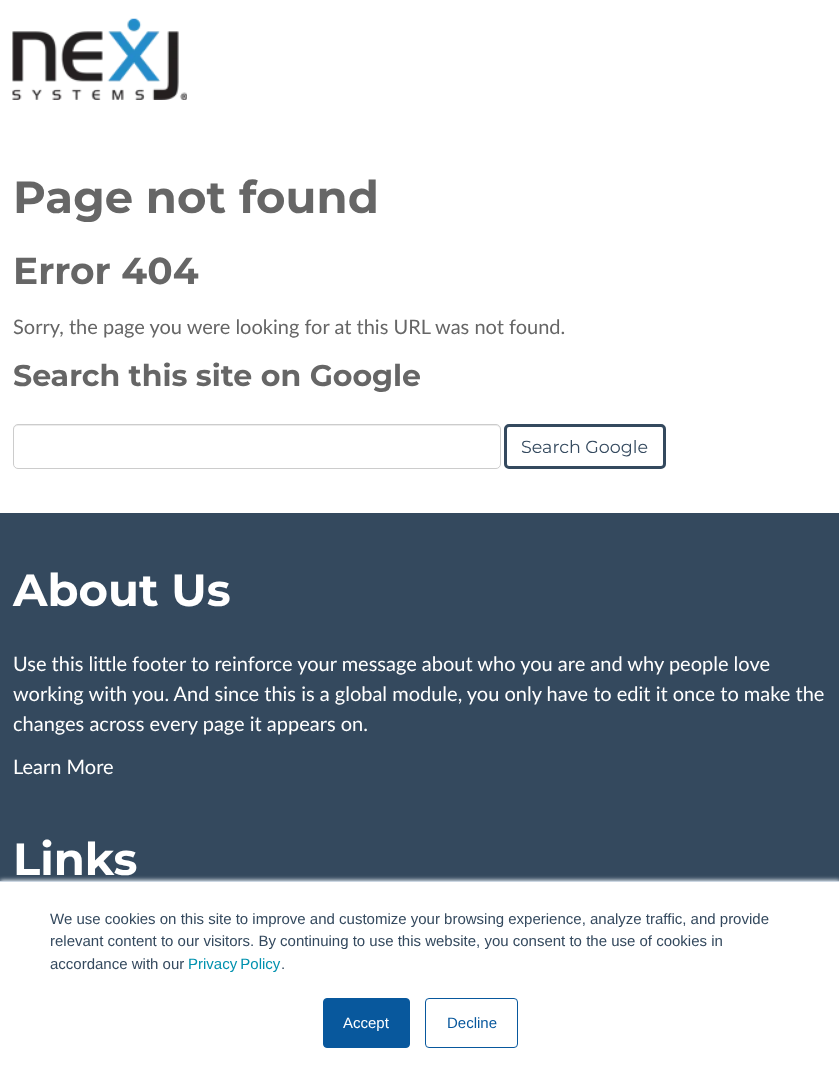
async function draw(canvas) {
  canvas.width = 839
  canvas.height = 1080
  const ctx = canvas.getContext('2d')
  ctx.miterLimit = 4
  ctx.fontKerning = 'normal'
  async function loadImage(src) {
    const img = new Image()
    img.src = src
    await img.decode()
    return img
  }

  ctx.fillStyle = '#fff'
  ctx.fillRect(0, 0, 839, 1080)
  ctx.drawImage(await loadImage('image0.png'), 12, 18, 175, 82)
  ctx.font = 'bold 45px Montserrat'
  ctx.fillStyle = '#666'
  ctx.fillText('Page not found', 13, 213)
  ctx.font = 'bold 37.5px Montserrat'
  ctx.fillText('Error 404', 13, 284)
  ctx.font = '20px Lato'
  ctx.fillText('Sorry, the page you were looking for at this URL was not found.', 13, 334)
  ctx.font = 'bold 30px Montserrat'
  ctx.fillText('Search this site on Google', 13, 386)
  ctx.fillStyle = '#ececec'
  ctx.beginPath()
  ctx.moveTo(18, 426)
  ctx.lineTo(496, 426)
  ctx.bezierCurveTo(498, 426, 500, 428, 500, 430)
  ctx.bezierCurveTo(500, 427, 499, 425, 496, 425)
  ctx.lineTo(18, 425)
  ctx.bezierCurveTo(15, 425, 14, 427, 14, 430)
  ctx.bezierCurveTo(14, 428, 15, 426, 18, 426)
  ctx.closePath()
  ctx.fill()
  ctx.beginPath()
  ctx.roundRect(13.5, 424.5, 487, 44, 4.5)
  ctx.strokeStyle = '#ccc'
  ctx.stroke()
  ctx.beginPath()
  ctx.roundRect(505.5, 425.5, 159, 42, 3.5)
  ctx.strokeStyle = '#34495e'
  ctx.lineWidth = 3
  ctx.stroke()
  ctx.font = '17.5px Montserrat'
  ctx.fillStyle = '#34495e'
  ctx.fillText('Search Google', 521, 453)
  ctx.fillRect(0, 513, 839, 368)
  ctx.font = 'bold 45px Montserrat'
  ctx.fillStyle = '#fff'
  ctx.fillText('About Us', 13, 606)
  ctx.font = '20px Lato'
  ctx.fillText('Use this little footer to reinforce your message about who you are and why people love', 13, 671)
  ctx.fillText('working with you. And since this is a global module, you only have to edit it once to make the', 13, 701)
  ctx.fillText('changes across every page it appears on.', 13, 731)
  ctx.fillText('Learn More', 13, 774)
  ctx.font = 'bold 45px Montserrat'
  ctx.fillText('Links', 13, 875)
  ctx.fillStyle = '#eaf0f6'
  ctx.filter = 'blur(2px)'
  ctx.beginPath()
  ctx.rect(0, 880, 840, 199)
  ctx.fill()
  ctx.filter = 'none'
  ctx.fillStyle = '#fff'
  ctx.fillRect(0, 882, 839, 198)
  ctx.fillStyle = '#cbd6e2'
  ctx.fillRect(0, 881, 839, 1)
  ctx.font = '15px Liberation Sans'
  ctx.fillStyle = '#34495e'
  ctx.fillText('We use cookies on this site to improve and customize your browsing experience, analyze traffic, and provide', 50, 924)
  ctx.fillText('relevant content to our visitors. By continuing to use this website, you consent to the use of cookies in', 50, 946)
  ctx.fillText('accordance with our', 50, 969)
  ctx.wordSpacing = '-1px'
  ctx.fillStyle = '#0091ae'
  ctx.fillText('Privacy Policy', 188, 969)
  ctx.wordSpacing = '0px'
  ctx.fillStyle = '#34495e'
  ctx.fillText('.', 281, 969)
  ctx.fillStyle = '#08589d'
  ctx.beginPath()
  ctx.roundRect(323.5, 998.5, 86, 49, 3.5)
  ctx.fill()
  ctx.strokeStyle = '#08589d'
  ctx.lineWidth = 1
  ctx.stroke()
  ctx.fillStyle = '#fff'
  ctx.fillText('Accept', 343, 1028)
  ctx.beginPath()
  ctx.roundRect(425.5, 998.5, 92, 49, 3.5)
  ctx.stroke()
  ctx.fillStyle = '#08589d'
  ctx.fillText('Decline', 447, 1028)
}

draw(document.querySelector('canvas'))
